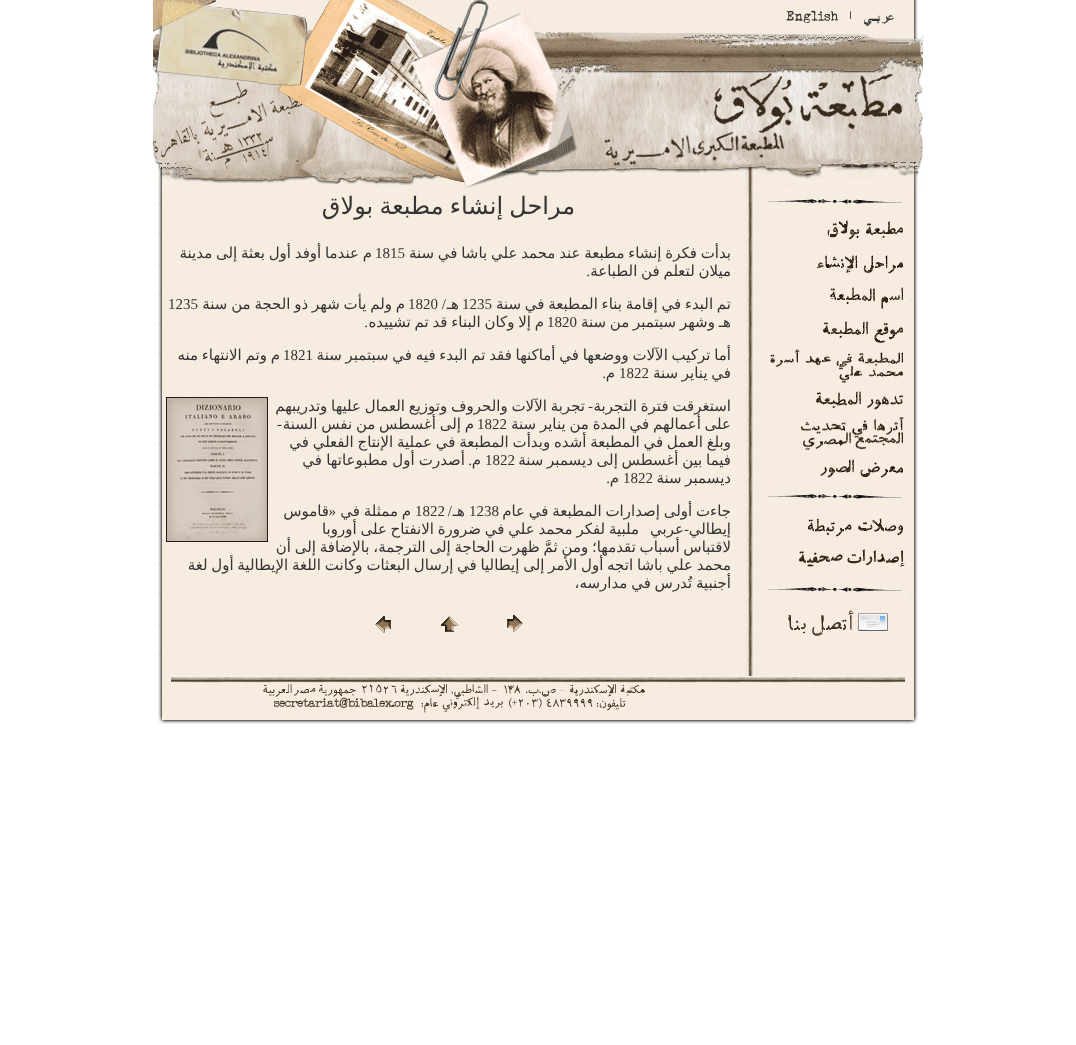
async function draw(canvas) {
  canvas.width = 1076
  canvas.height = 1045
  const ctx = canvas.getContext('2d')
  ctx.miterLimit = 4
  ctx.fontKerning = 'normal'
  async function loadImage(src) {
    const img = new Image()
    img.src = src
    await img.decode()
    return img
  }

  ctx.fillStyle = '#fff'
  ctx.fillRect(0, 0, 1076, 1045)
  ctx.drawImage(await loadImage('image0.png'), 906, 0, 12, 30)
  ctx.drawImage(await loadImage('image1.png'), 855, 0, 51, 30)
  ctx.drawImage(await loadImage('image2.png'), 845, 0, 10, 30)
  ctx.drawImage(await loadImage('image3.png'), 780, 0, 65, 30)
  ctx.fillStyle = '#f6ede0'
  ctx.fillRect(757, 0, 23, 30)
  ctx.drawImage(await loadImage('image4.png'), 153, 0, 604, 189)
  ctx.drawImage(await loadImage('image5.png'), 757, 30, 166, 159)
  ctx.drawImage(await loadImage('image6.png'), 909, 189, 14, 487)
  ctx.fillRect(162, 189, 747, 487)
  ctx.drawImage(await loadImage('image7.png'), 768, 199, 134, 5)
  ctx.drawImage(await loadImage('image8.png'), 827, 220, 76, 20)
  ctx.drawImage(await loadImage('image9.png'), 817, 255, 86, 19)
  ctx.drawImage(await loadImage('image10.png'), 830, 287, 73, 22)
  ctx.drawImage(await loadImage('image11.png'), 823, 321, 80, 22)
  ctx.drawImage(await loadImage('image12.png'), 770, 349, 133, 34)
  ctx.drawImage(await loadImage('image13.png'), 816, 391, 88, 21)
  ctx.drawImage(await loadImage('image14.png'), 801, 417, 103, 33)
  ctx.drawImage(await loadImage('image15.png'), 820, 459, 83, 19)
  ctx.drawImage(await loadImage('image7.png'), 768, 494, 134, 5)
  ctx.drawImage(await loadImage('image16.png'), 807, 518, 96, 19)
  ctx.drawImage(await loadImage('image17.png'), 799, 549, 106, 18)
  ctx.drawImage(await loadImage('image7.png'), 768, 587, 134, 5)
  ctx.drawImage(await loadImage('image18.png'), 788, 610, 100, 26)
  ctx.drawImage(await loadImage('image19.png'), 746, 219, 7, 457)
  ctx.drawImage(await loadImage('image20.png'), 746, 189, 7, 30)
  ctx.drawImage(await loadImage('image21.png'), 153, 189, 9, 487)
  ctx.wordSpacing = '-1.5px'
  ctx.direction = 'rtl'
  ctx.font = '24px DejaVu Sans'
  ctx.fillStyle = '#333'
  ctx.fillText('مراحل إنشاء مطبعة بولاق', 575, 214)
  ctx.wordSpacing = '-1px'
  ctx.font = '15px DejaVu Sans'
  ctx.fillText('بدأت فكرة إنشاء مطبعة عند محمد علي باشا في سنة', 731, 258)
  ctx.fillText('م عندما أوفد أول بعثة إلى مدينة', 372, 258)
  ctx.wordSpacing = '0px'
  ctx.direction = 'ltr'
  ctx.font = '15px Liberation Serif'
  ctx.fillText('1815', 375, 258)
  ctx.wordSpacing = '-1px'
  ctx.direction = 'rtl'
  ctx.font = '15px DejaVu Sans'
  ctx.fillText('ميلان لتعلم فن الطباعة', 731, 276)
  ctx.wordSpacing = '0px'
  ctx.font = '15px Liberation Serif'
  ctx.fillText('.', 590, 276)
  ctx.wordSpacing = '-1px'
  ctx.font = '15px DejaVu Sans'
  ctx.fillText('تم البدء في إقامة بناء المطبعة في سنة', 731, 309)
  ctx.wordSpacing = '0px'
  ctx.direction = 'ltr'
  ctx.font = '15px Liberation Serif'
  ctx.fillText('1235', 462, 309)
  ctx.direction = 'rtl'
  ctx.fillText('/', 446, 309)
  ctx.font = '15px DejaVu Sans'
  ctx.fillText('هـ', 459, 309)
  ctx.wordSpacing = '-1px'
  ctx.fillText('م ولم يأت شهر ذو الحجة من سنة', 405, 309)
  ctx.wordSpacing = '0px'
  ctx.direction = 'ltr'
  ctx.font = '15px Liberation Serif'
  ctx.fillText('1820', 408, 309)
  ctx.fillText('1235', 168, 309)
  ctx.wordSpacing = '-1px'
  ctx.direction = 'rtl'
  ctx.font = '15px DejaVu Sans'
  ctx.fillText('هـ وشهر سبتمبر من سنة', 731, 327)
  ctx.fillText('م إلا وكان البناء قد تم تشييده', 544, 327)
  ctx.wordSpacing = '0px'
  ctx.direction = 'ltr'
  ctx.font = '15px Liberation Serif'
  ctx.fillText('1820', 547, 327)
  ctx.direction = 'rtl'
  ctx.fillText('.', 368, 327)
  ctx.wordSpacing = '-1px'
  ctx.font = '15px DejaVu Sans'
  ctx.fillText('أما تركيب الآلات ووضعها في أماكنها فقد تم البدء فيه في سبتمبر سنة', 731, 360)
  ctx.wordSpacing = '0px'
  ctx.direction = 'ltr'
  ctx.font = '15px Liberation Serif'
  ctx.fillText('1821', 283, 360)
  ctx.wordSpacing = '-1px'
  ctx.direction = 'rtl'
  ctx.font = '15px DejaVu Sans'
  ctx.fillText('م وتم الانتهاء منه', 280, 360)
  ctx.fillText('في يناير سنة', 731, 378)
  ctx.wordSpacing = '0px'
  ctx.direction = 'ltr'
  ctx.font = '15px Liberation Serif'
  ctx.fillText('1822', 619, 378)
  ctx.direction = 'rtl'
  ctx.font = '15px DejaVu Sans'
  ctx.fillText('م', 615, 378)
  ctx.font = '15px Liberation Serif'
  ctx.fillText('.', 606, 378)
  ctx.wordSpacing = '-1px'
  ctx.font = '15px DejaVu Sans'
  ctx.fillText('استغرقت فترة التجربة', 731, 411)
  ctx.fillText('تجربة الآلات والحروف وتوزيع العمال عليها وتدريبهم', 585, 411)
  ctx.strokeStyle = '#271b18'
  ctx.strokeRect(166.5, 397.5, 101, 144)
  ctx.drawImage(await loadImage('image22.png'), 167, 398, 100, 143)
  ctx.wordSpacing = '0px'
  ctx.font = '15px Liberation Serif'
  ctx.fillText('-', 593, 411)
  ctx.wordSpacing = '-1px'
  ctx.font = '15px DejaVu Sans'
  ctx.fillText('على أعمالهم في المدة من يناير سنة', 731, 429)
  ctx.wordSpacing = '0px'
  ctx.direction = 'ltr'
  ctx.font = '15px Liberation Serif'
  ctx.fillText('1822', 477, 429)
  ctx.wordSpacing = '-1px'
  ctx.direction = 'rtl'
  ctx.font = '15px DejaVu Sans'
  ctx.fillText('م إلى أغسطس من نفس السنة', 474, 429)
  ctx.wordSpacing = '0px'
  ctx.font = '15px Liberation Serif'
  ctx.fillText('-', 282, 429)
  ctx.wordSpacing = '-1px'
  ctx.font = '15px DejaVu Sans'
  ctx.fillText('وبلغ العمل في المطبعة أشده وبدأت المطبعة في عملية الإنتاج الفعلي في', 731, 447)
  ctx.fillText('فيما بين أغسطس إلى ديسمبر سنة', 731, 465)
  ctx.wordSpacing = '0px'
  ctx.direction = 'ltr'
  ctx.font = '15px Liberation Serif'
  ctx.fillText('1822', 485, 465)
  ctx.direction = 'rtl'
  ctx.font = '15px DejaVu Sans'
  ctx.fillText('م', 481, 465)
  ctx.font = '15px Liberation Serif'
  ctx.fillText('.', 472, 465)
  ctx.wordSpacing = '-0.5px'
  ctx.font = '15px DejaVu Sans'
  ctx.fillText('أصدرت أول مطبوعاتها في', 465, 465)
  ctx.wordSpacing = '-1px'
  ctx.fillText('ديسمبر سنة', 731, 483)
  ctx.wordSpacing = '0px'
  ctx.direction = 'ltr'
  ctx.font = '15px Liberation Serif'
  ctx.fillText('1822', 623, 483)
  ctx.direction = 'rtl'
  ctx.font = '15px DejaVu Sans'
  ctx.fillText('م', 619, 483)
  ctx.font = '15px Liberation Serif'
  ctx.fillText('.', 610, 483)
  ctx.wordSpacing = '-1px'
  ctx.font = '15px DejaVu Sans'
  ctx.fillText('جاءت أولى إصدارات المطبعة في عام', 731, 516)
  ctx.wordSpacing = '0px'
  ctx.direction = 'ltr'
  ctx.font = '15px Liberation Serif'
  ctx.fillText('1238', 469, 516)
  ctx.direction = 'rtl'
  ctx.fillText('/', 452, 516)
  ctx.font = '15px DejaVu Sans'
  ctx.fillText('هـ', 465, 516)
  ctx.direction = 'ltr'
  ctx.font = '15px Liberation Serif'
  ctx.fillText('1822', 415, 516)
  ctx.wordSpacing = '-1px'
  ctx.direction = 'rtl'
  ctx.font = '15px DejaVu Sans'
  ctx.fillText('م ممثلة في', 411, 516)
  ctx.wordSpacing = '0px'
  ctx.font = '15px Liberation Serif'
  ctx.fillText('«', 336, 516)
  ctx.font = '15px DejaVu Sans'
  ctx.fillText('قاموس', 329, 516)
  ctx.fillText('إيطالي', 731, 534)
  ctx.font = '15px Liberation Serif'
  ctx.fillText('-', 689, 534)
  ctx.font = '15px DejaVu Sans'
  ctx.fillText('عربي', 684, 534)
  ctx.wordSpacing = '-1px'
  ctx.fillText('ملبية لفكر محمد علي في ضرورة الانفتاح على أوروبا', 639, 534)
  ctx.fillText('لاقتباس أسباب تقدمها؛ ومن ثمَّ ظهرت الحاجة إلى الترجمة، بالإضافة إلى أن', 731, 552)
  ctx.fillText('محمد علي باشا اتجه أول الأمر إلى إيطاليا في إرسال البعثات وكانت اللغة الإيطالية أول لغة', 731, 570)
  ctx.fillText('أجنبية تُدرس في مدارسه،', 731, 588)
  ctx.drawImage(await loadImage('image23.png'), 507, 615, 16, 17)
  ctx.drawImage(await loadImage('image24.png'), 441, 616, 17, 16)
  ctx.drawImage(await loadImage('image25.png'), 375, 616, 16, 17)
  ctx.fillStyle = '#f6ede0'
  ctx.fillRect(162, 676, 752, 37)
  ctx.drawImage(await loadImage('image26.png'), 153, 676, 9, 37)
  ctx.drawImage(await loadImage('image27.png'), 171, 676, 568, 7)
  ctx.drawImage(await loadImage('image28.png'), 263, 684, 382, 29)
  ctx.drawImage(await loadImage('image29.png'), 914, 676, 9, 37)
  ctx.drawImage(await loadImage('image30.png'), 739, 676, 166, 7)
  ctx.drawImage(await loadImage('image31.png'), 906, 713, 12, 11)
  ctx.drawImage(await loadImage('image32.png'), 346, 713, 560, 11)
  ctx.drawImage(await loadImage('image33.png'), 327, 713, 19, 11)
  ctx.drawImage(await loadImage('image34.png'), 170, 713, 157, 11)
  ctx.drawImage(await loadImage('image35.png'), 158, 713, 12, 11)
}

draw(document.querySelector('canvas'))
